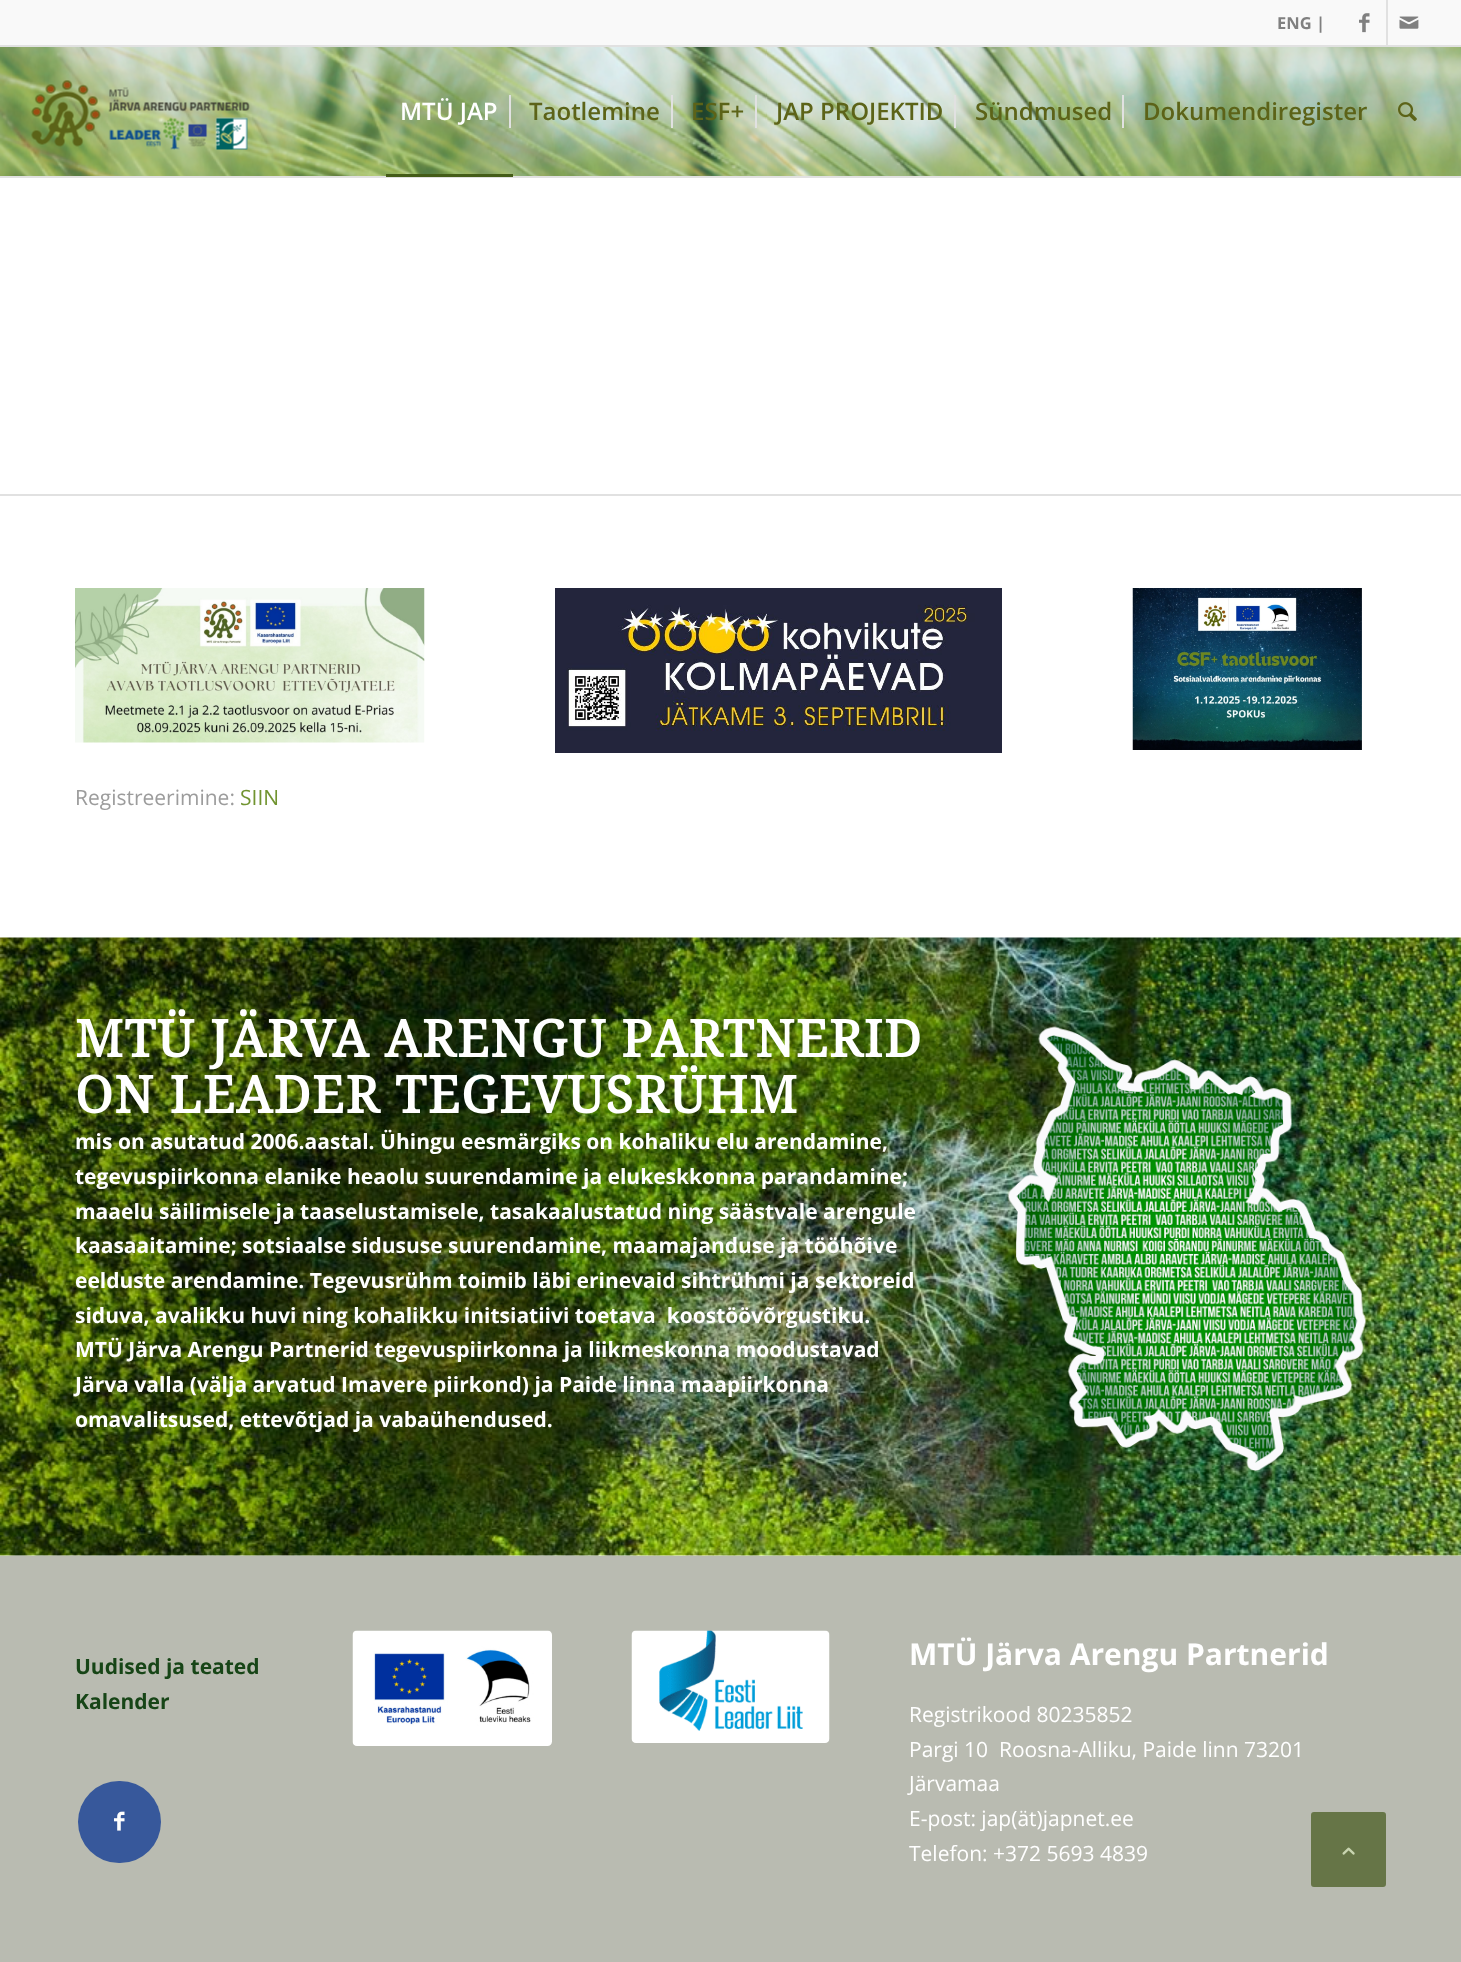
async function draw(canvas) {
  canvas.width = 1461
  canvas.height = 1962
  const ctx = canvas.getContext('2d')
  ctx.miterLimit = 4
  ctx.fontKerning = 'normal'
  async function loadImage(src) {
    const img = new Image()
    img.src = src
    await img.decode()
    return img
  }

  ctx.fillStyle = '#f9f9f9'
  ctx.fillRect(0, 0, 1461, 1962)
  ctx.fillStyle = '#e1e1e1'
  ctx.fillRect(0, 45, 1461, 2)
  ctx.font = 'bold 16.5px Open Sans'
  ctx.fillStyle = '#808080'
  ctx.fillText('ENG |', 1277, 29)
  ctx.fillStyle = '#e1e1e1'
  ctx.fillRect(1386, 0, 2, 45)
  ctx.drawImage(await loadImage('image0.png'), 1359, 13, 11, 20)
  ctx.drawImage(await loadImage('image1.png'), 1399, 16, 20, 13)
  ctx.drawImage(await loadImage('image2.png'), 0, 47, 1461, 129)
  ctx.fillRect(0, 176, 1461, 2)
  ctx.drawImage(await loadImage('image3.png'), 31, 80, 219, 70)
  ctx.font = '600 24px Open Sans'
  ctx.fillStyle = '#fff'
  ctx.fillText('MTÜ JAP', 400, 120)
  ctx.fillStyle = '#445c18'
  ctx.fillRect(386, 174, 127, 3)
  ctx.fillStyle = '#5c6318'
  ctx.fillText('Taotlemine', 529, 120)
  ctx.fillStyle = '#e1e1e1'
  ctx.fillRect(509, 95, 2, 33)
  ctx.fillStyle = '#5c6318'
  ctx.fillText('ESF+', 691, 120)
  ctx.fillStyle = '#e1e1e1'
  ctx.fillRect(671, 95, 2, 33)
  ctx.fillStyle = '#5c6318'
  ctx.fillText('JAP PROJEKTID', 776, 120)
  ctx.fillStyle = '#e1e1e1'
  ctx.fillRect(755, 95, 2, 33)
  ctx.fillStyle = '#5c6318'
  ctx.fillText('Sündmused', 975, 120)
  ctx.fillStyle = '#e1e1e1'
  ctx.fillRect(954, 95, 2, 33)
  ctx.fillStyle = '#5c6318'
  ctx.fillText('Dokumendiregister', 1143, 120)
  ctx.fillStyle = '#e1e1e1'
  ctx.fillRect(1122, 95, 2, 33)
  ctx.drawImage(await loadImage('image4.png'), 1398, 102, 19, 20)
  ctx.fillStyle = '#fff'
  ctx.fillRect(0, 178, 1461, 316)
  ctx.fillRect(0, 496, 1461, 442)
  ctx.fillStyle = '#e1e1e1'
  ctx.fillRect(0, 494, 1461, 2)
  ctx.drawImage(await loadImage('image5.png'), 555, 588, 447, 165)
  ctx.drawImage(await loadImage('image6.png'), 1132, 588, 230, 162)
  ctx.drawImage(await loadImage('image7.png'), 75, 588, 350, 155)
  ctx.font = '21px Open Sans'
  ctx.fillStyle = '#9c9c9c'
  ctx.fillText('Registreerimine:', 75, 805)
  ctx.fillStyle = '#719430'
  ctx.fillText('SIIN', 240, 805)
  ctx.drawImage(await loadImage('image8.png'), 0, 937, 1461, 619)
  ctx.letterSpacing = '1.5px'
  ctx.font = 'bold 51px Droid Serif'
  ctx.fillStyle = '#fff'
  ctx.fillText('MTÜ JÄRVA ARENGU PARTNERID', 75, 1057)
  ctx.fillText('ON LEADER TEGEVUSRÜHM', 75, 1113)
  ctx.letterSpacing = '0px'
  ctx.font = 'bold 21px Open Sans'
  ctx.fillText('mis on asutatud 2006.aastal. Ühingu eesmärgiks on kohaliku elu arendamine,', 75, 1149)
  ctx.fillText('tegevuspiirkonna elanike heaolu suurendamine ja elukeskkonna parandamine;', 75, 1184)
  ctx.fillText('maaelu säilimisele ja taaselustamisele, tasakaalustatud ning säästvale arengule', 75, 1219)
  ctx.fillText('kaasaaitamine; sotsiaalse sidususe suurendamine, maamajanduse ja tööhõive', 75, 1253)
  ctx.fillText('eelduste arendamine. Tegevusrühm toimib läbi erinevaid sihtrühmi ja sektoreid', 75, 1288)
  ctx.fillText('siduva, avalikku huvi ning kohalikku initsiatiivi toetava  koostöövõrgustiku.', 75, 1323)
  ctx.fillText('MTÜ Järva Arengu Partnerid tegevuspiirkonna ja liikmeskonna moodustavad', 75, 1357)
  ctx.fillText('Järva valla (välja arvatud Imavere piirkond) ja Paide linna maapiirkonna', 75, 1392)
  ctx.fillText('omavalitsused, ettevõtjad ja vabaühendused.', 75, 1427)
  ctx.drawImage(await loadImage('image9.png'), 1007, 1026, 360, 446)
  ctx.fillStyle = '#b9bbb1'
  ctx.fillRect(0, 1556, 1461, 406)
  ctx.fillStyle = '#174517'
  ctx.fillText('Uudised ja teated', 75, 1674)
  ctx.fillText('Kalender', 75, 1709)
  ctx.fillStyle = '#37589b'
  ctx.beginPath()
  ctx.roundRect(78, 1781, 83, 82, 41)
  ctx.fill()
  ctx.drawImage(await loadImage('image10.png'), 114, 1811, 11, 20)
  ctx.drawImage(await loadImage('image11.png'), 352, 1630, 200, 116)
  ctx.drawImage(await loadImage('image12.png'), 631, 1630, 199, 113)
  ctx.font = 'bold 30px Open Sans'
  ctx.fillStyle = '#fff'
  ctx.fillText('MTÜ Järva Arengu Partnerid', 909, 1665)
  ctx.font = '21px Open Sans'
  ctx.fillText('Registrikood 80235852', 909, 1722)
  ctx.fillText('Pargi 10  Roosna-Alliku, Paide linn 73201', 909, 1757)
  ctx.fillText('Järvamaa', 909, 1791)
  ctx.fillText('E-post: jap(ät)japnet.ee', 909, 1826)
  ctx.fillText('Telefon: +372 5693 4839', 909, 1861)
  ctx.fillStyle = '#667547'
  ctx.beginPath()
  ctx.roundRect(1312, 1813, 73, 73, 2)
  ctx.fill()
  ctx.strokeStyle = '#667547'
  ctx.lineWidth = 2
  ctx.stroke()
  ctx.drawImage(await loadImage('image13.png'), 1342, 1847, 13, 8)
}

draw(document.querySelector('canvas'))
